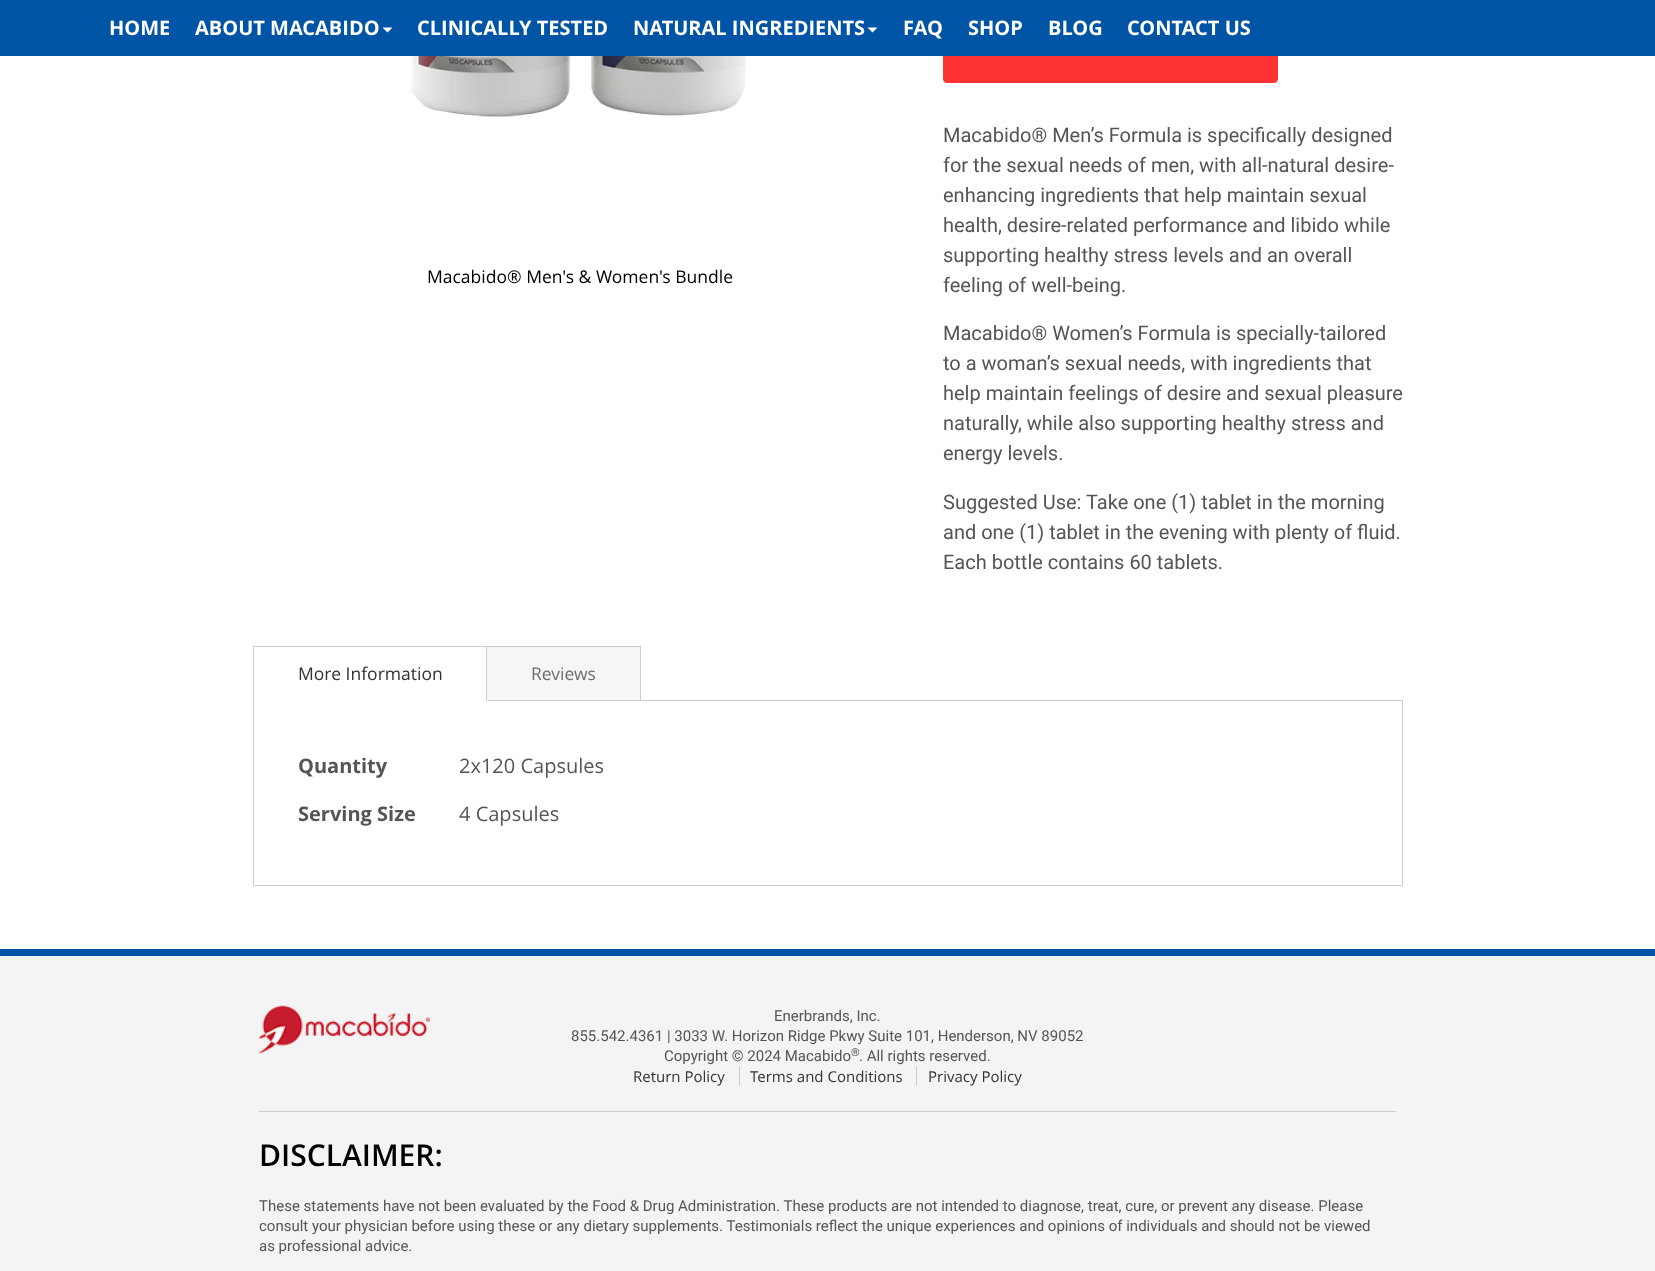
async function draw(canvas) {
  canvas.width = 1655
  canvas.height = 1271
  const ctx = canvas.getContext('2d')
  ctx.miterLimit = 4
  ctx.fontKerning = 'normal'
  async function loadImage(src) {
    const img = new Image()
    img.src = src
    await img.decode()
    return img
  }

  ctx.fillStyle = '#fff'
  ctx.fillRect(0, 0, 1655, 1271)
  ctx.fillStyle = '#f33'
  ctx.beginPath()
  ctx.roundRect(943.5, 18.5, 334, 64, 3.5)
  ctx.fill()
  ctx.strokeStyle = '#f33'
  ctx.stroke()
  ctx.fillStyle = '#0054a6'
  ctx.fillRect(0, 0, 1655, 56)
  ctx.font = 'bold 20px Open Sans'
  ctx.fillStyle = '#fff'
  ctx.fillText('HOME', 109, 35)
  ctx.fillText('ABOUT MACABIDO', 195, 35)
  ctx.beginPath()
  ctx.moveTo(382.5, 27.5)
  ctx.lineTo(392.5, 27.5)
  ctx.lineTo(387.5, 32.5)
  ctx.closePath()
  ctx.fill()
  ctx.fillText('CLINICALLY TESTED', 417, 35)
  ctx.fillText('NATURAL INGREDIENTS', 633, 35)
  ctx.beginPath()
  ctx.moveTo(867.5, 27.5)
  ctx.lineTo(877.5, 27.5)
  ctx.lineTo(872.5, 32.5)
  ctx.closePath()
  ctx.fill()
  ctx.fillText('FAQ', 903, 35)
  ctx.fillText('SHOP', 968, 35)
  ctx.fillText('BLOG', 1048, 35)
  ctx.fillText('CONTACT US', 1127, 35)
  ctx.drawImage(await loadImage('image0.png'), 411, 56, 336, 61)
  ctx.font = '17.5px Open Sans'
  ctx.fillStyle = '#000'
  ctx.fillText('Macabido® Men\'s & Women\'s Bundle', 427, 283)
  ctx.font = '20px Roboto'
  ctx.fillStyle = '#555'
  ctx.fillText('Macabido® Men’s Formula is specifically designed', 943, 142)
  ctx.fillText('for the sexual needs of men, with all-natural desire-', 943, 172)
  ctx.fillText('enhancing ingredients that help maintain sexual', 943, 202)
  ctx.fillText('health, desire-related performance and libido while', 943, 232)
  ctx.fillText('supporting healthy stress levels and an overall', 943, 262)
  ctx.fillText('feeling of well-being.', 943, 292)
  ctx.fillText('Macabido® Women’s Formula is specially-tailored', 943, 340)
  ctx.fillText('to a woman’s sexual needs, with ingredients that', 943, 370)
  ctx.fillText('help maintain feelings of desire and sexual pleasure', 943, 400)
  ctx.fillText('naturally, while also supporting healthy stress and', 943, 430)
  ctx.fillText('energy levels.', 943, 460)
  ctx.fillText('Suggested Use: Take one (1) tablet in the morning', 943, 509)
  ctx.fillText('and one (1) tablet in the evening with plenty of fluid.', 943, 539)
  ctx.fillText('Each bottle contains 60 tablets.', 943, 569)
  ctx.strokeStyle = '#ccc'
  ctx.strokeRect(253.5, 700.5, 1149, 185)
  ctx.fillStyle = '#fff'
  ctx.fillRect(254, 700, 234, 1)
  ctx.fillStyle = '#ccc'
  ctx.fillRect(253, 646, 388, 1)
  ctx.fillRect(486, 646, 1, 55)
  ctx.fillRect(253, 646, 1, 55)
  ctx.font = '17.5px Open Sans'
  ctx.fillStyle = '#333'
  ctx.fillText('More Information', 298, 680)
  ctx.fillStyle = '#f6f6f6'
  ctx.fillRect(487, 647, 153, 53)
  ctx.fillStyle = '#ccc'
  ctx.fillRect(640, 646, 1, 54)
  ctx.fillStyle = '#6d6d6d'
  ctx.fillText('Reviews', 531, 680)
  ctx.font = 'bold 20px Open Sans'
  ctx.fillStyle = '#555'
  ctx.fillText('Quantity', 298, 773)
  ctx.font = '20px Open Sans'
  ctx.fillText('2x120 Capsules', 459, 773)
  ctx.font = 'bold 20px Open Sans'
  ctx.fillText('Serving Size', 298, 821)
  ctx.font = '20px Open Sans'
  ctx.fillText('4 Capsules', 459, 821)
  ctx.fillStyle = '#f4f4f4'
  ctx.fillRect(0, 956, 1655, 315)
  ctx.fillStyle = '#0054a6'
  ctx.fillRect(0, 949, 1655, 7)
  ctx.fillStyle = '#ccc'
  ctx.fillRect(259, 1111, 1137, 1)
  ctx.drawImage(await loadImage('image1.png'), 258, 1005, 172, 49)
  ctx.font = '15px Roboto'
  ctx.fillStyle = '#555'
  ctx.fillText('Enerbrands, Inc.', 774, 1021)
  ctx.fillText('855.542.4361 | 3033 W. Horizon Ridge Pkwy Suite 101, Henderson, NV 89052', 571, 1041)
  ctx.fillText('Copyright © 2024 Macabido', 664, 1061)
  ctx.font = '11px Roboto'
  ctx.fillText('®', 851, 1056)
  ctx.font = '15px Roboto'
  ctx.fillText('. All rights reserved.', 859, 1061)
  ctx.font = '15px Open Sans'
  ctx.fillStyle = '#333'
  ctx.fillText('Return Policy', 633, 1082)
  ctx.fillText('Terms and Conditions', 750, 1082)
  ctx.fillStyle = '#ccc'
  ctx.fillRect(739, 1066, 1, 20)
  ctx.fillStyle = '#333'
  ctx.fillText('Privacy Policy', 928, 1082)
  ctx.fillStyle = '#ccc'
  ctx.fillRect(916, 1066, 1, 20)
  ctx.font = '600 30px Open Sans'
  ctx.fillStyle = '#000'
  ctx.fillText('DISCLAIMER:', 259, 1166)
  ctx.font = '15px Roboto'
  ctx.fillStyle = '#555'
  ctx.fillText('These statements have not been evaluated by the Food & Drug Administration. These products are not intended to diagnose, treat, cure, or prevent any disease. Please', 259, 1211)
  ctx.fillText('consult your physician before using these or any dietary supplements. Testimonials reflect the unique experiences and opinions of individuals and should not be viewed', 259, 1231)
  ctx.fillText('as professional advice.', 259, 1251)
}

draw(document.querySelector('canvas'))
